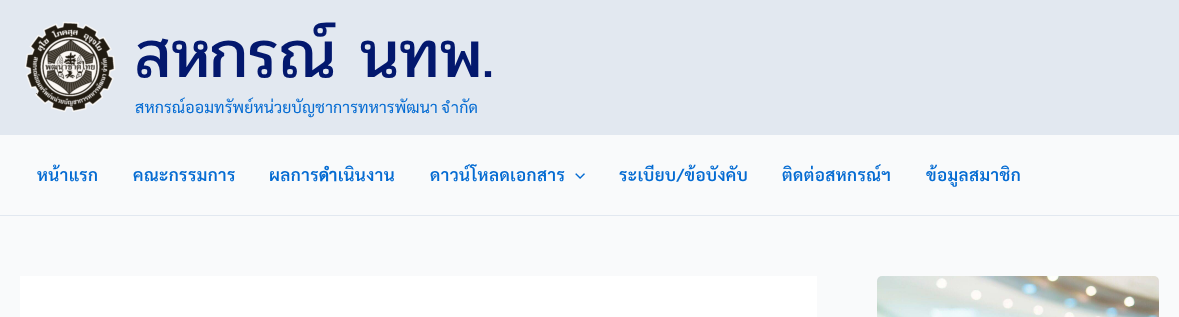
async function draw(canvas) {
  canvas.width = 1179
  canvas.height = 317
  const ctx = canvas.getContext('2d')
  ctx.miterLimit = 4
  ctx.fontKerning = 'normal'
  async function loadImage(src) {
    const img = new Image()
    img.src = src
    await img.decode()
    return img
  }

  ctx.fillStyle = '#f9fafb'
  ctx.fillRect(0, 0, 1179, 317)
  ctx.fillStyle = '#e2e8f0'
  ctx.fillRect(0, 0, 1179, 135)
  ctx.drawImage(await loadImage('image0.png'), 24, 21, 92, 91)
  ctx.letterSpacing = '0.1px'
  ctx.font = '67px Pridi'
  ctx.fillStyle = '#03186e'
  ctx.fillText('สหกรณ์ นทพ.', 135, 77)
  ctx.wordSpacing = '-1px'
  ctx.font = '16px Sarabun'
  ctx.fillStyle = '#046bd2'
  ctx.fillText('สหกรณ์ออมทรัพย์หน่วยบัญชาการทหารพัฒนา จำกัด', 135, 113)
  ctx.fillStyle = '#e2e8f0'
  ctx.fillRect(0, 215, 1179, 1)
  ctx.letterSpacing = '0.4px'
  ctx.wordSpacing = '0px'
  ctx.font = '600 17px Sarabun'
  ctx.fillStyle = '#046bd2'
  ctx.fillText('หน้าแรก', 37, 181)
  ctx.fillText('คณะกรรมการ', 133, 181)
  ctx.fillText('ผลการดำเนินงาน', 269, 181)
  ctx.fillText('ดาวน์โหลดเอกสาร', 430, 181)
  ctx.drawImage(await loadImage('image1.png'), 575, 173, 10, 6)
  ctx.fillText('ระเบียบ/ข้อบังคับ', 619, 181)
  ctx.fillText('ติดต่อสหกรณ์ฯ', 782, 181)
  ctx.fillText('ข้อมูลสมาชิก', 926, 181)
  ctx.fillStyle = '#fff'
  ctx.fillRect(20, 276, 797, 41)
  ctx.drawImage(await loadImage('image2.png'), 877, 276, 282, 41)
}

draw(document.querySelector('canvas'))
